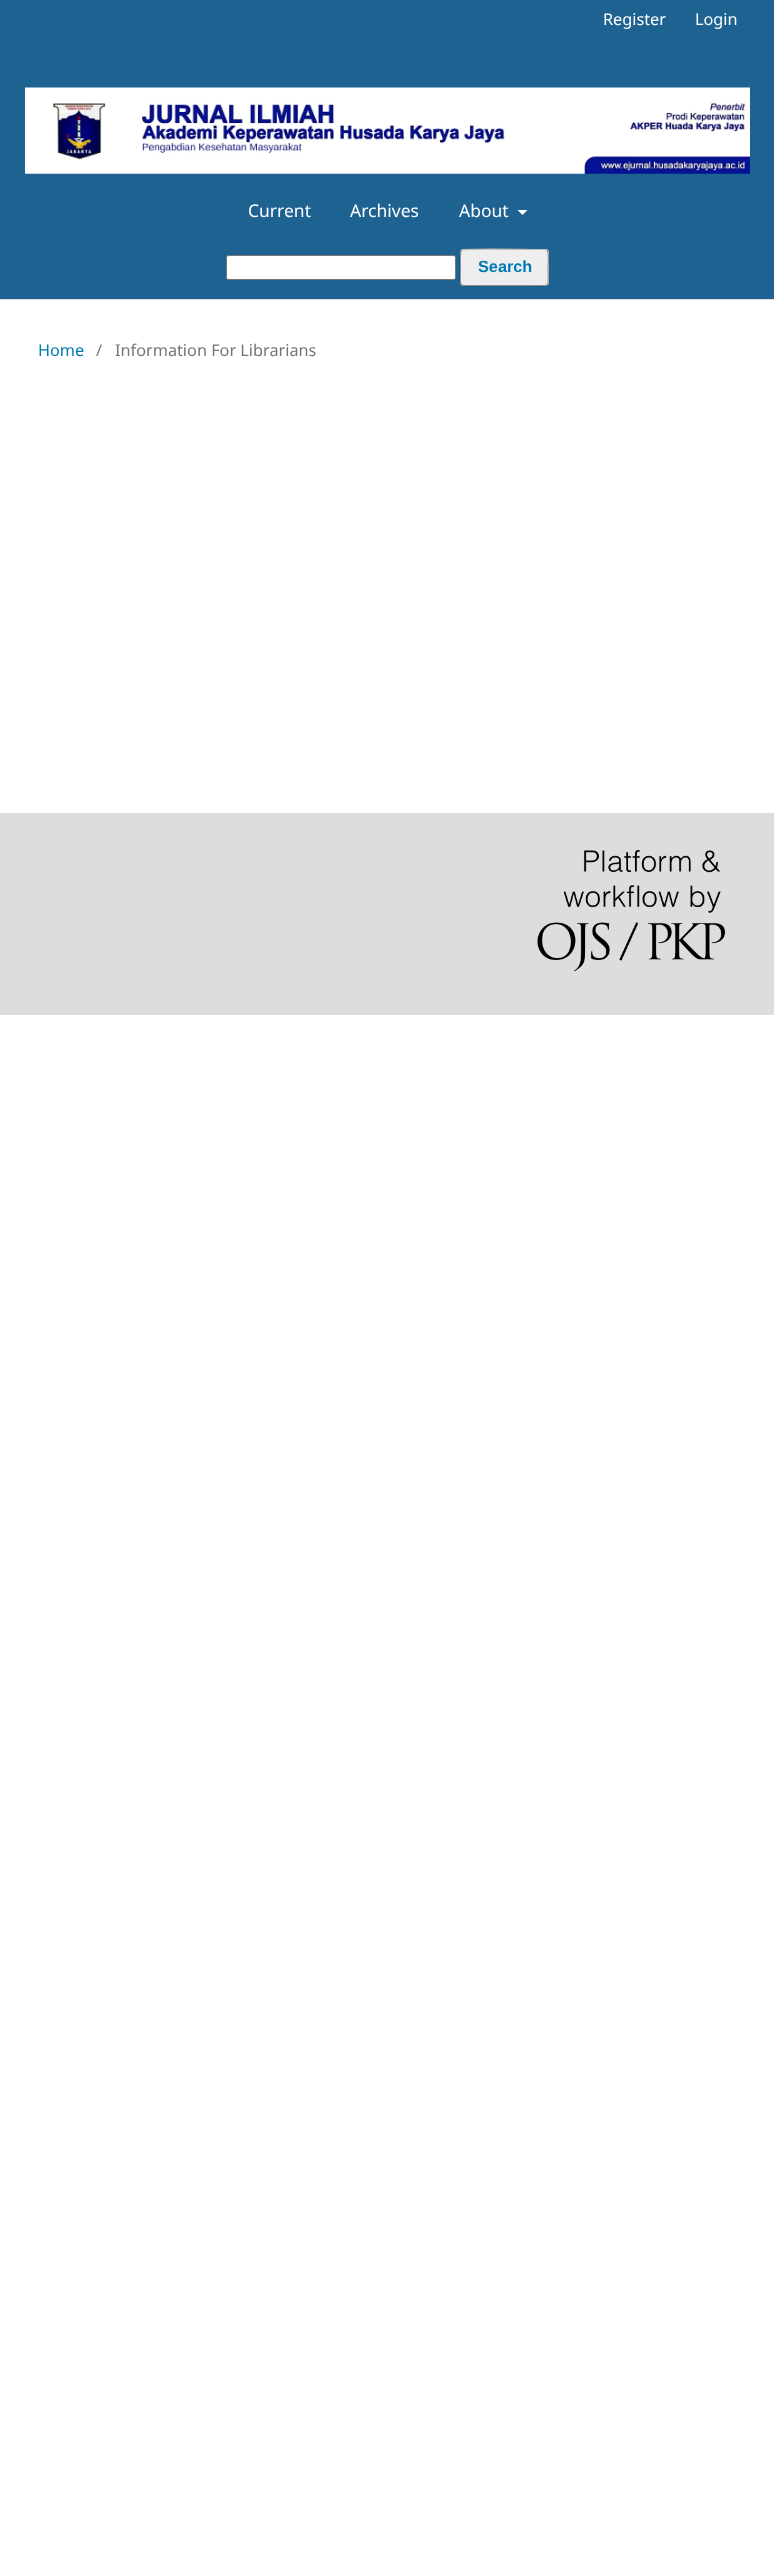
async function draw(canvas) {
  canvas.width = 774
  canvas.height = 2549
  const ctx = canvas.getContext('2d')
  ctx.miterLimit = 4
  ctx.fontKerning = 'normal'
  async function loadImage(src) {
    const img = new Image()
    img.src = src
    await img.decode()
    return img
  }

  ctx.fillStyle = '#fff'
  ctx.fillRect(0, 0, 774, 2549)
  ctx.fillStyle = '#1e6292'
  ctx.fillRect(0, 0, 774, 299)
  ctx.fillStyle = '#ddd'
  ctx.fillRect(0, 299, 774, 1)
  ctx.font = '16.25px Noto Sans'
  ctx.fillStyle = '#fff'
  ctx.fillText('Register', 603, 25)
  ctx.fillText('Login', 695, 25)
  ctx.drawImage(await loadImage('image0.png'), 25, 87, 725, 87)
  ctx.font = '17.5px Noto Sans'
  ctx.fillText('Current', 248, 217)
  ctx.fillText('Archives', 350, 217)
  ctx.fillText('About', 459, 217)
  ctx.beginPath()
  ctx.moveTo(517.5, 210)
  ctx.lineTo(527.5, 210)
  ctx.lineTo(522.5, 215)
  ctx.closePath()
  ctx.fill()
  ctx.beginPath()
  ctx.roundRect(226.5, 255.5, 229, 24, 2)
  ctx.fill()
  ctx.strokeStyle = '#767676'
  ctx.stroke()
  ctx.fillStyle = '#eee'
  ctx.beginPath()
  ctx.roundRect(460, 249, 89, 37, 4)
  ctx.fill()
  ctx.beginPath()
  ctx.moveTo(461.5, 250.5)
  ctx.lineTo(462, 250)
  ctx.bezierCurveTo(464, 248.5, 524, 249.5, 531.5, 249.5)
  ctx.lineTo(545, 249.5)
  ctx.lineTo(547, 250.5)
  ctx.strokeStyle = '#bbb'
  ctx.lineWidth = 1.2
  ctx.stroke()
  ctx.beginPath()
  ctx.moveTo(547, 250.5)
  ctx.bezierCurveTo(549.5, 252.5, 548, 264.5, 548, 267.5)
  ctx.bezierCurveTo(548, 288.5, 552, 285.5, 531.5, 285.5)
  ctx.lineTo(477.5, 285.5)
  ctx.bezierCurveTo(456.5, 285.5, 460.5, 288.5, 460.5, 267.5)
  ctx.bezierCurveTo(460.5, 264.5, 459.5, 252.5, 461.5, 250.5)
  ctx.strokeStyle = '#00000066'
  ctx.stroke()
  ctx.font = 'bold 16.25px Liberation Sans'
  ctx.fillStyle = '#007ab2'
  ctx.fillText('Search', 478, 272)
  ctx.font = '16.25px Noto Sans'
  ctx.fillText('Home', 38, 356)
  ctx.fillStyle = '#757575'
  ctx.fillText('/', 96, 356)
  ctx.fillText('Information For Librarians', 115, 356)
  ctx.fillStyle = '#ddd'
  ctx.fillRect(0, 813, 774, 202)
  ctx.drawImage(await loadImage('image1.png'), 537, 850, 188, 122)
}

draw(document.querySelector('canvas'))
